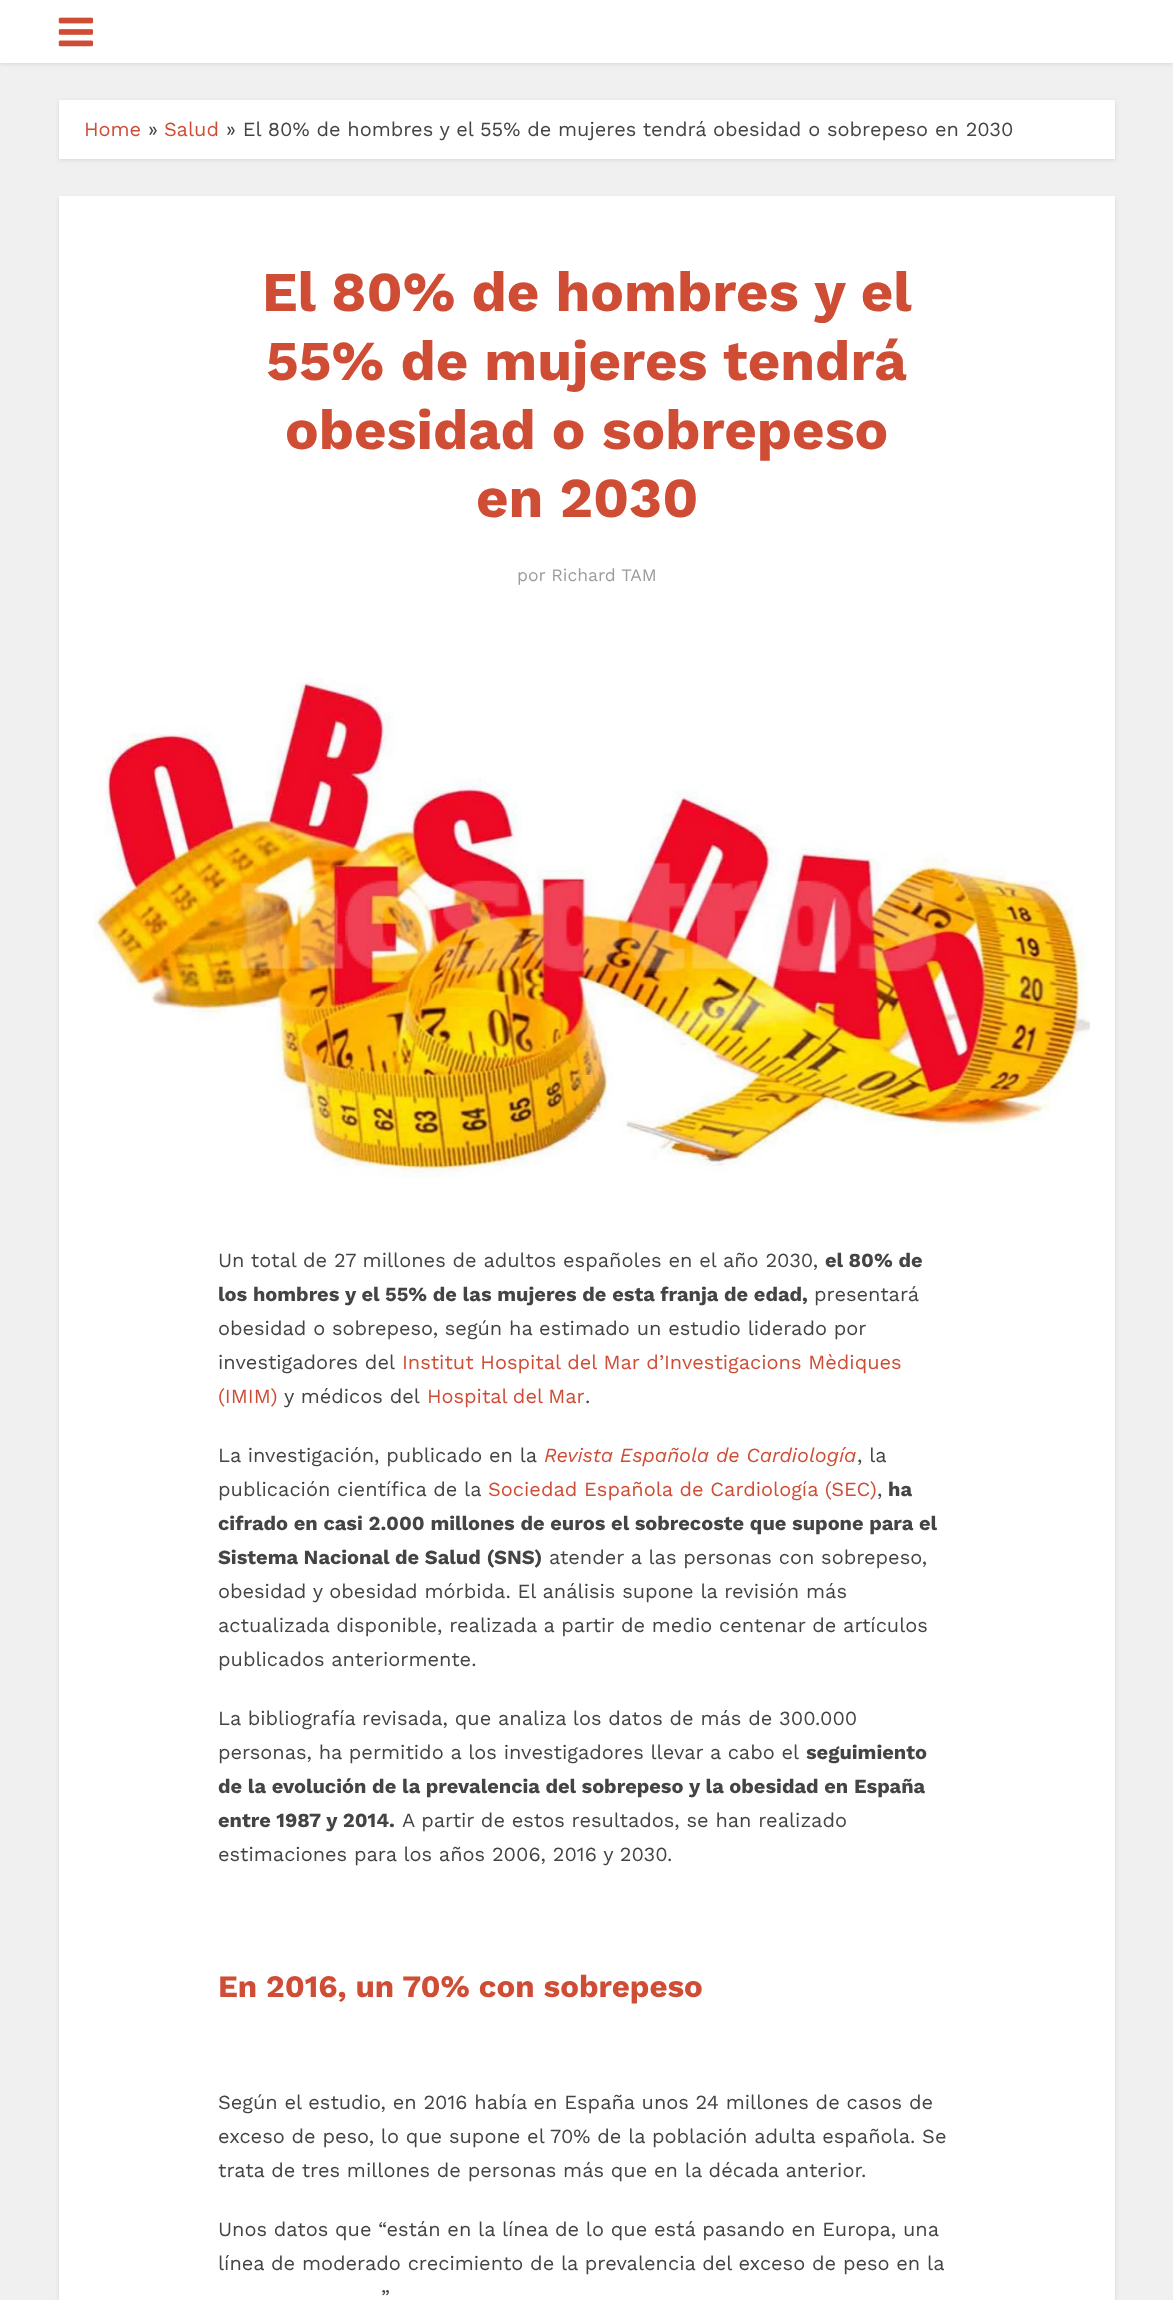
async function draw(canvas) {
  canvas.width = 1173
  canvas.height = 2300
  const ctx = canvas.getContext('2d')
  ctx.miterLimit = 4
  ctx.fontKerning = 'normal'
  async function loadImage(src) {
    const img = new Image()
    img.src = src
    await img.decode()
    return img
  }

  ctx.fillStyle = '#f0f0f0'
  ctx.fillRect(0, 0, 1173, 2300)
  ctx.fillStyle = '#0000001a'
  ctx.filter = 'blur(2px)'
  ctx.beginPath()
  ctx.rect(0, 1, 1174, 63)
  ctx.fill()
  ctx.filter = 'none'
  ctx.fillStyle = '#fff'
  ctx.fillRect(0, 0, 1173, 63)
  ctx.drawImage(await loadImage('image0.png'), 58, 17, 36, 30)
  ctx.fillStyle = '#0000001a'
  ctx.filter = 'blur(2px)'
  ctx.beginPath()
  ctx.rect(59, 101, 1056, 59)
  ctx.fill()
  ctx.filter = 'none'
  ctx.fillStyle = '#fff'
  ctx.fillRect(59, 100, 1056, 59)
  ctx.font = '20px Work Sans'
  ctx.fillStyle = '#cf4d35'
  ctx.fillText('Home', 84, 136)
  ctx.fillStyle = '#444'
  ctx.fillText('»', 148, 136)
  ctx.fillStyle = '#cf4d35'
  ctx.fillText('Salud', 164, 136)
  ctx.fillStyle = '#444'
  ctx.fillText('» El 80% de hombres y el 55% de mujeres tendrá obesidad o sobrepeso en 2030', 226, 136)
  ctx.fillStyle = '#0000001a'
  ctx.filter = 'blur(2px)'
  ctx.beginPath()
  ctx.rect(59, 198, 1056, 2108)
  ctx.fill()
  ctx.filter = 'none'
  ctx.fillStyle = '#fff'
  ctx.fillRect(59, 196, 1056, 2104)
  ctx.font = 'bold 56.25px Work Sans'
  ctx.fillStyle = '#cf4d35'
  ctx.fillText('El 80% de hombres y el', 262, 311)
  ctx.fillText('55% de mujeres tendrá', 266, 380)
  ctx.fillText('obesidad o sobrepeso', 285, 449)
  ctx.fillText('en 2030', 476, 517)
  ctx.font = '17.5px Work Sans'
  ctx.fillStyle = '#9b9b9b'
  ctx.fillText('por Richard TAM', 517, 581)
  ctx.drawImage(await loadImage('image1.png'), 94, 678, 996, 500)
  ctx.font = '20px Work Sans'
  ctx.fillStyle = '#444'
  ctx.fillText('Un total de 27 millones de adultos españoles en el año 2030,', 218, 1267)
  ctx.font = 'bold 20px Work Sans'
  ctx.fillText('el 80% de', 825, 1267)
  ctx.fillText('los hombres y el 55% de las mujeres de esta franja de edad,', 218, 1301)
  ctx.font = '20px Work Sans'
  ctx.fillText('presentará', 814, 1301)
  ctx.fillText('obesidad o sobrepeso, según ha estimado un estudio liderado por', 218, 1335)
  ctx.fillText('investigadores del', 218, 1369)
  ctx.fillStyle = '#cf4d35'
  ctx.fillText('Institut Hospital del Mar d’Investigacions Mèdiques', 402, 1369)
  ctx.fillText('(IMIM)', 218, 1403)
  ctx.fillStyle = '#444'
  ctx.fillText('y médicos del', 284, 1403)
  ctx.wordSpacing = '-1px'
  ctx.fillStyle = '#cf4d35'
  ctx.fillText('Hospital del Mar', 427, 1403)
  ctx.wordSpacing = '0px'
  ctx.fillStyle = '#444'
  ctx.fillText('.', 585, 1403)
  ctx.fillText('La investigación, publicado en la', 218, 1462)
  ctx.font = 'italic 20px Work Sans'
  ctx.fillStyle = '#cf4d35'
  ctx.fillText('Revista Española de Cardiología', 544, 1462)
  ctx.font = '20px Work Sans'
  ctx.fillStyle = '#444'
  ctx.fillText(', la', 857, 1462)
  ctx.fillText('publicación científica de la', 218, 1496)
  ctx.fillStyle = '#cf4d35'
  ctx.fillText('Sociedad Española de Cardiología (SEC)', 488, 1496)
  ctx.fillStyle = '#444'
  ctx.fillText(',', 877, 1496)
  ctx.font = 'bold 20px Work Sans'
  ctx.fillText('ha', 888, 1496)
  ctx.fillText('cifrado en casi 2.000 millones de euros el sobrecoste que supone para el', 218, 1530)
  ctx.fillText('Sistema Nacional de Salud (SNS)', 218, 1564)
  ctx.font = '20px Work Sans'
  ctx.fillText('atender a las personas con sobrepeso,', 549, 1564)
  ctx.fillText('obesidad y obesidad mórbida. El análisis supone la revisión más', 218, 1598)
  ctx.fillText('actualizada disponible, realizada a partir de medio centenar de artículos', 218, 1632)
  ctx.fillText('publicados anteriormente.', 218, 1666)
  ctx.fillText('La bibliografía revisada, que analiza los datos de más de 300.000', 218, 1725)
  ctx.fillText('personas, ha permitido a los investigadores llevar a cabo el', 218, 1759)
  ctx.font = 'bold 20px Work Sans'
  ctx.fillText('seguimiento', 806, 1759)
  ctx.fillText('de la evolución de la prevalencia del sobrepeso y la obesidad en España', 218, 1793)
  ctx.fillText('entre 1987 y 2014.', 218, 1827)
  ctx.font = '20px Work Sans'
  ctx.fillText('A partir de estos resultados, se han realizado', 402, 1827)
  ctx.fillText('estimaciones para los años 2006, 2016 y 2030.', 218, 1861)
  ctx.font = 'bold 31.25px Work Sans'
  ctx.fillStyle = '#cf4d35'
  ctx.fillText('En 2016, un 70% con sobrepeso', 218, 1997)
  ctx.font = '20px Work Sans'
  ctx.fillStyle = '#444'
  ctx.fillText('Según el estudio, en 2016 había en España unos 24 millones de casos de', 218, 2109)
  ctx.fillText('exceso de peso, lo que supone el 70% de la población adulta española. Se', 218, 2143)
  ctx.fillText('trata de tres millones de personas más que en la década anterior.', 218, 2177)
  ctx.fillText('Unos datos que “están en la línea de lo que está pasando en Europa, una', 218, 2236)
  ctx.fillText('línea de moderado crecimiento de la prevalencia del exceso de peso en la', 218, 2270)
  ctx.fillText('”', 381, 2304)
}

draw(document.querySelector('canvas'))
